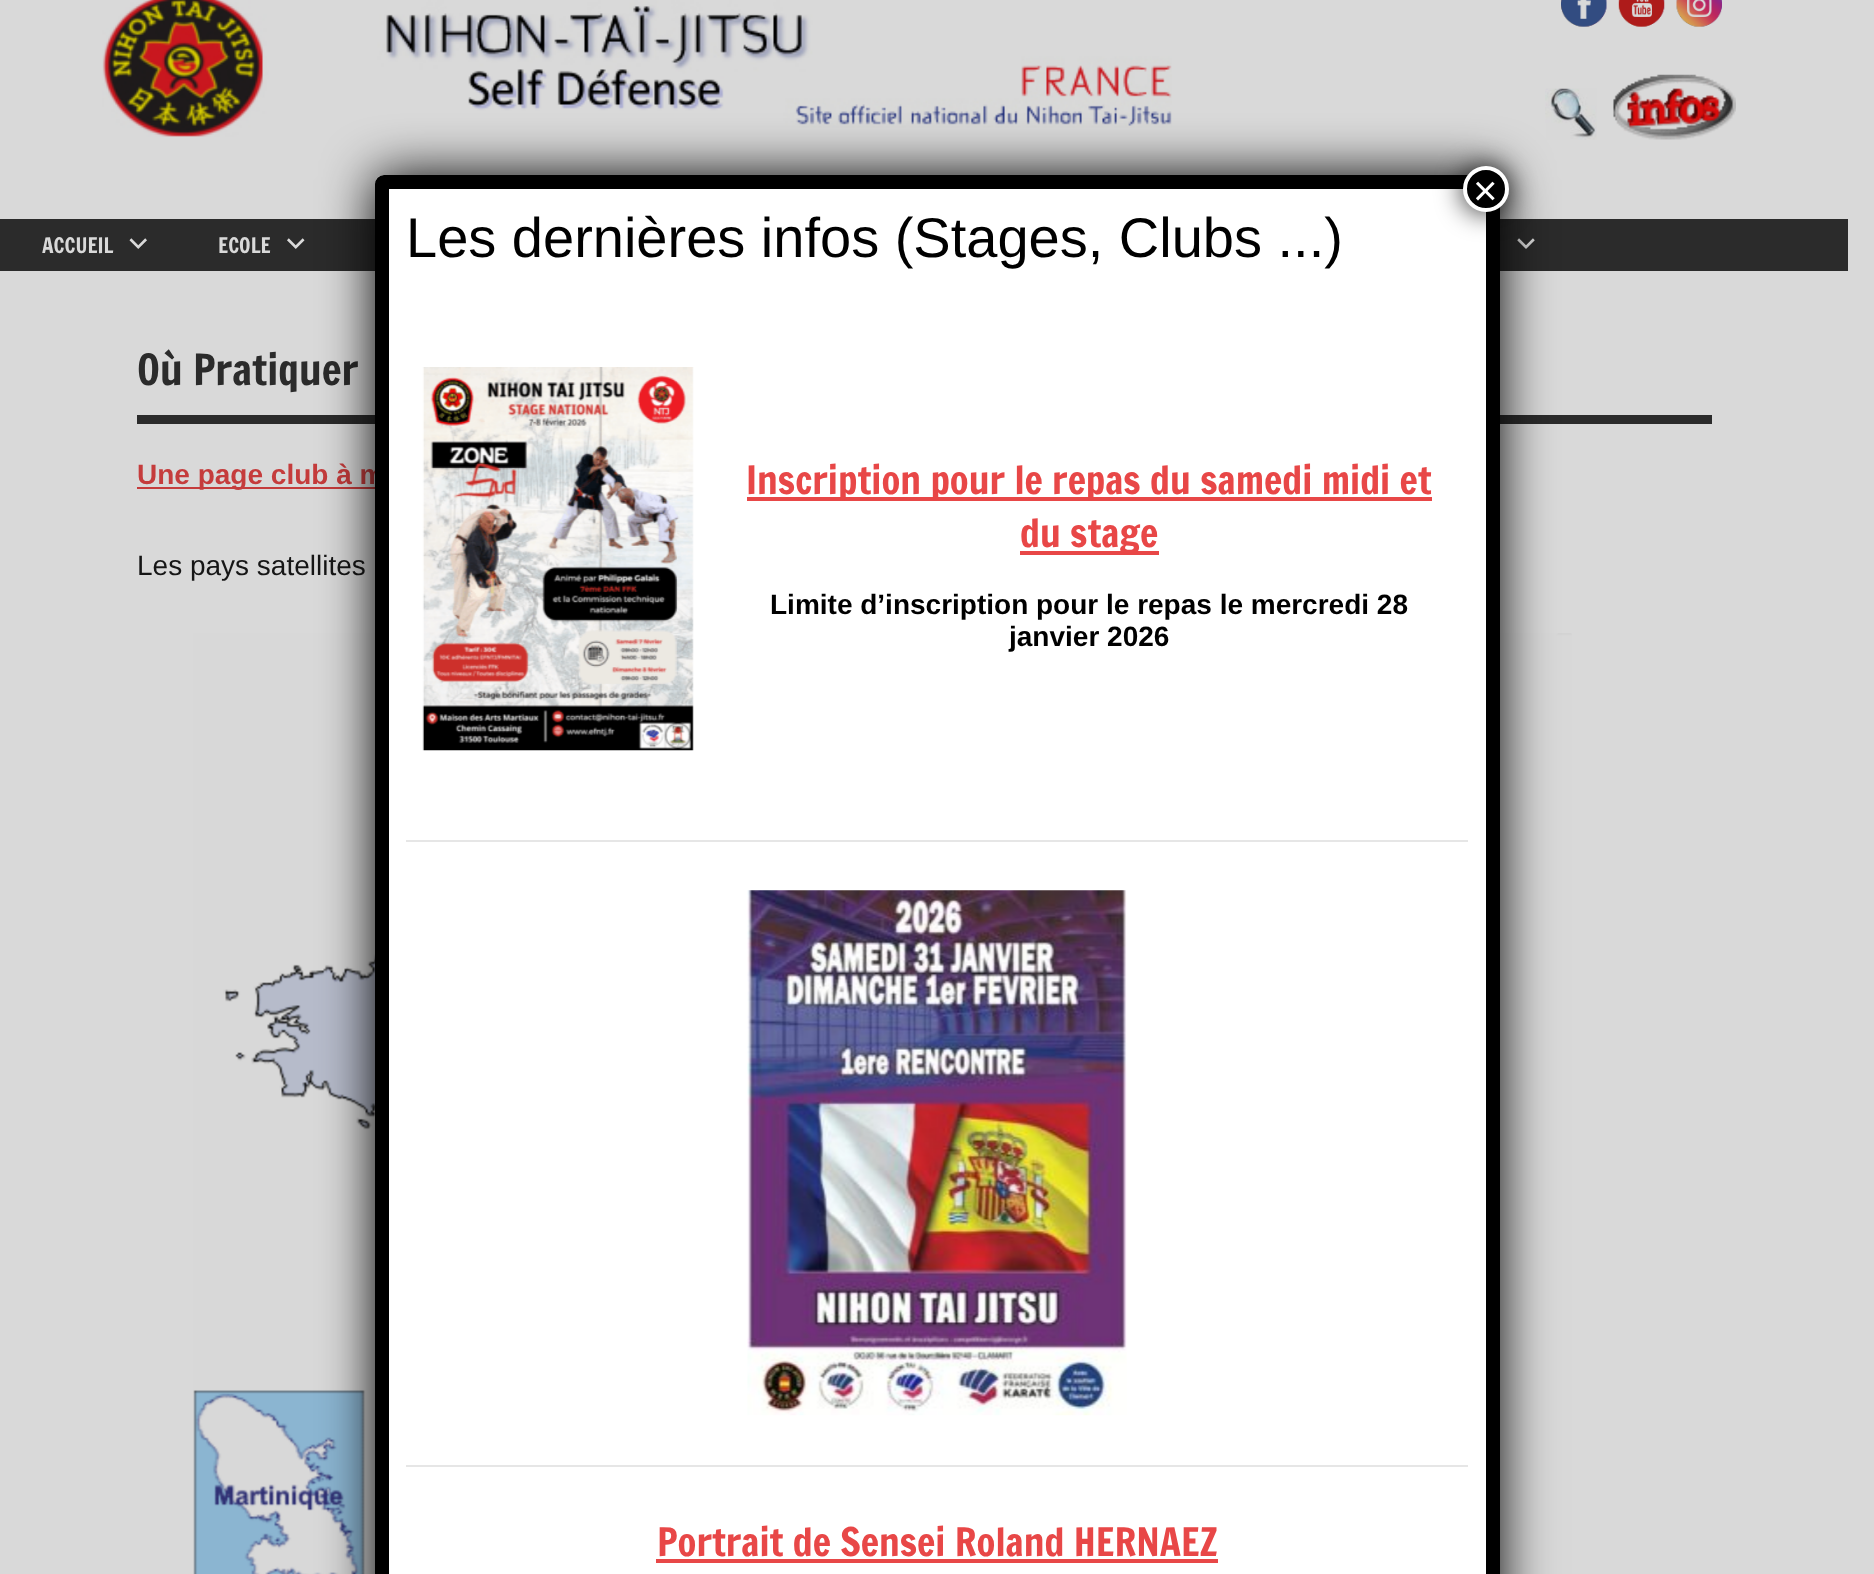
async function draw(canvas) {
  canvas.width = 1874
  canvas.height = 1574
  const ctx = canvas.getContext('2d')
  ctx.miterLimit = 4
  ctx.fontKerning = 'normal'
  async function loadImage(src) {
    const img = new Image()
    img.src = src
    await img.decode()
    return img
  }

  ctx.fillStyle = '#d9d9d9'
  ctx.fillRect(0, 0, 1874, 1574)
  ctx.drawImage(await loadImage('image0.png'), 102, 0, 1070, 137)
  ctx.drawImage(await loadImage('image1.png'), 1561, 0, 46, 27)
  ctx.drawImage(await loadImage('image2.png'), 1618, 0, 47, 27)
  ctx.drawImage(await loadImage('image3.png'), 1676, 0, 46, 27)
  ctx.drawImage(await loadImage('image4.png'), 1545, 88, 52, 52)
  ctx.drawImage(await loadImage('image5.png'), 1613, 74, 123, 66)
  ctx.fillStyle = '#2b2b2b'
  ctx.fillRect(0, 219, 1848, 52)
  ctx.font = '21px Francois One'
  ctx.fillStyle = '#d9d9d9'
  ctx.fillText('ACCUEIL', 42, 253)
  ctx.drawImage(await loadImage('image6.png'), 129, 238, 18, 11)
  ctx.fillText('ECOLE', 218, 253)
  ctx.drawImage(await loadImage('image7.png'), 287, 238, 18, 11)
  ctx.drawImage(await loadImage('image8.png'), 1517, 238, 18, 11)
  ctx.fillStyle = '#2b2b2b'
  ctx.fillRect(137, 415, 1575, 9)
  ctx.font = '42px Francois One'
  ctx.fillText('Où Pratiquer', 137, 385)
  ctx.fillStyle = '#c53c3c'
  ctx.fillRect(137, 487, 238, 2)
  ctx.font = 'bold 28px Liberation Sans'
  ctx.fillText('Une page club à m', 137, 484)
  ctx.font = '28px Liberation Sans'
  ctx.fillStyle = '#161616'
  ctx.fillText('Les pays satellites', 137, 575)
  ctx.drawImage(await loadImage('image9.png'), 193, 633, 1379, 941)
  ctx.fillStyle = '#020202'
  ctx.filter = 'blur(26px)'
  ctx.beginPath()
  ctx.roundRect(375, 175, 1125, 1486, 9)
  ctx.fill()
  ctx.filter = 'none'
  ctx.fillStyle = '#fff'
  ctx.beginPath()
  ctx.moveTo(384, 175)
  ctx.lineTo(1491, 175)
  ctx.bezierCurveTo(1496, 175, 1500, 179, 1500, 184)
  ctx.lineTo(1500, 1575)
  ctx.lineTo(375, 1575)
  ctx.lineTo(375, 184)
  ctx.bezierCurveTo(375, 179, 379, 175, 384, 175)
  ctx.closePath()
  ctx.fill()
  ctx.beginPath()
  ctx.roundRect(382, 182, 1111, 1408, 2)
  ctx.strokeStyle = '#000'
  ctx.lineWidth = 14
  ctx.stroke()
  ctx.fillStyle = '#020202bf'
  ctx.filter = 'blur(13px)'
  ctx.beginPath()
  ctx.roundRect(1461, 165, 49, 49, 24.5)
  ctx.fill()
  ctx.filter = 'none'
  ctx.fillStyle = '#000'
  ctx.beginPath()
  ctx.arc(1486, 189, 21, 0, 2 * Math.PI)
  ctx.fill()
  ctx.strokeStyle = '#fff'
  ctx.lineWidth = 4
  ctx.stroke()
  ctx.font = '42px Liberation Sans'
  ctx.fillStyle = '#fff'
  ctx.fillText('×', 1473, 205)
  ctx.font = '56px Liberation Sans'
  ctx.fillStyle = '#000'
  ctx.fillText('Les dernières infos (Stages, Clubs ...)', 406, 257)
  ctx.drawImage(await loadImage('image10.png'), 422, 367, 272, 384)
  ctx.fillStyle = '#e84747'
  ctx.fillRect(747, 497, 685, 4)
  ctx.font = '38.5px Francois One'
  ctx.fillText('Inscription pour le repas du samedi midi et', 746, 494)
  ctx.fillRect(1020, 551, 139, 4)
  ctx.fillText('du stage', 1020, 547)
  ctx.font = 'bold 28px Liberation Sans'
  ctx.fillStyle = '#000'
  ctx.fillText('Limite d’inscription pour le repas le mercredi 28', 770, 614)
  ctx.fillText('janvier 2026', 1009, 646)
  ctx.fillStyle = '#e6e6e6'
  ctx.fillRect(406, 840, 1062, 2)
  ctx.drawImage(await loadImage('image11.png'), 747, 890, 380, 526)
  ctx.fillRect(406, 1465, 1062, 2)
  ctx.font = '38.5px Francois One'
  ctx.fillStyle = '#e84747'
  ctx.fillText('Portrait de Sensei Roland HERNAEZ', 657, 1556)
  ctx.fillRect(656, 1559, 562, 4)
}

draw(document.querySelector('canvas'))
